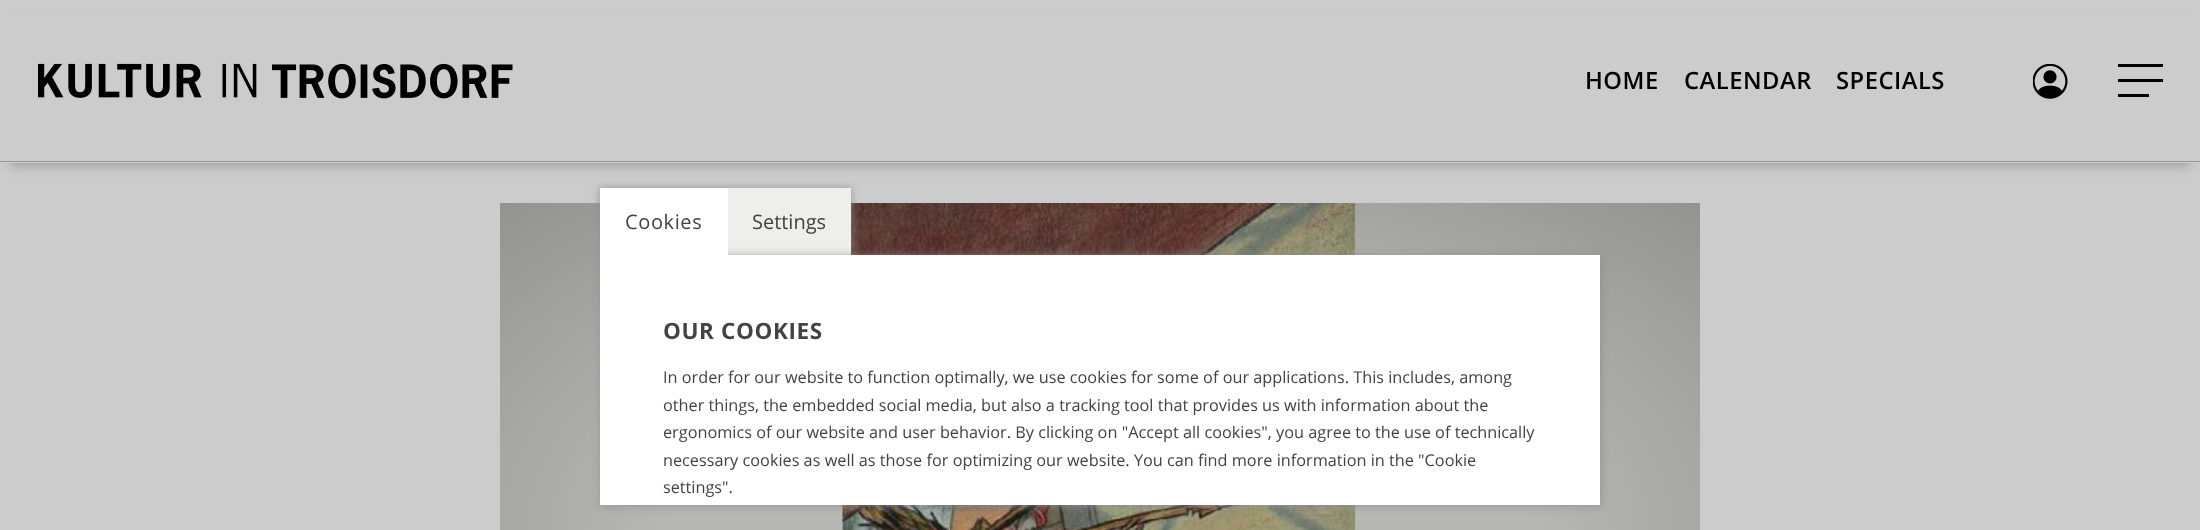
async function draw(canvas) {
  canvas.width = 2200
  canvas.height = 530
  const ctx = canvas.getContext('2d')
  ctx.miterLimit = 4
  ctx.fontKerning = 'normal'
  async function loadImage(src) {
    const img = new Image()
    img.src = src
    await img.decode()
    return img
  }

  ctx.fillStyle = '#ccc'
  ctx.fillRect(0, 0, 2200, 530)
  ctx.fillStyle = '#48484866'
  ctx.filter = 'blur(6px)'
  ctx.beginPath()
  ctx.rect(10, 23, 2180, 142)
  ctx.fill()
  ctx.filter = 'none'
  ctx.fillStyle = '#ccc'
  ctx.fillRect(0, 13, 2200, 150)
  ctx.fillStyle = '#969696'
  ctx.fillRect(0, 161, 2200, 1)
  ctx.drawImage(await loadImage('image0.png'), 38, 63, 475, 36)
  ctx.letterSpacing = '0.5px'
  ctx.font = '600 23.75px Open Sans'
  ctx.fillStyle = '#000'
  ctx.fillText('HOME', 1585, 89)
  ctx.fillText('CALENDAR', 1684, 89)
  ctx.fillText('SPECIALS', 1836, 89)
  ctx.drawImage(await loadImage('image1.png'), 2033, 64, 35, 35)
  ctx.fillRect(2118, 64, 45, 3)
  ctx.fillRect(2118, 79, 45, 3)
  ctx.fillRect(2118, 94, 31, 3)
  ctx.drawImage(await loadImage('image2.png'), 500, 203, 1200, 327)
  ctx.fillStyle = '#908c8cde'
  ctx.filter = 'blur(4px)'
  ctx.beginPath()
  ctx.rect(600, 188, 251, 67)
  ctx.fill()
  ctx.filter = 'none'
  ctx.fillStyle = '#eeeeed'
  ctx.fillRect(728, 188, 123, 67)
  ctx.fillStyle = '#908c8cde'
  ctx.filter = 'blur(4.5px)'
  ctx.beginPath()
  ctx.rect(601, 256, 1000, 250)
  ctx.fill()
  ctx.filter = 'none'
  ctx.fillStyle = '#fff'
  ctx.fillRect(600, 188, 128, 67)
  ctx.letterSpacing = '0.6px'
  ctx.font = '20px Open Sans'
  ctx.fillStyle = '#434343'
  ctx.fillText('Cookies', 625, 229)
  ctx.letterSpacing = '0px'
  ctx.fillText('Settings', 752, 229)
  ctx.fillStyle = '#fff'
  ctx.fillRect(600, 255, 1000, 250)
  ctx.letterSpacing = '0.6px'
  ctx.font = 'bold 22.5px Open Sans'
  ctx.fillStyle = '#434343'
  ctx.fillText('OUR COOKIES', 663, 339)
  ctx.letterSpacing = '0px'
  ctx.font = '16.25px Open Sans'
  ctx.fillText('In order for our website to function optimally, we use cookies for some of our applications. This includes, among', 663, 383)
  ctx.fillText('other things, the embedded social media, but also a tracking tool that provides us with information about the', 663, 411)
  ctx.fillText('ergonomics of our website and user behavior. By clicking on "Accept all cookies", you agree to the use of technically', 663, 438)
  ctx.fillText('necessary cookies as well as those for optimizing our website. You can find more information in the "Cookie', 663, 466)
  ctx.fillText('settings".', 663, 493)
}

draw(document.querySelector('canvas'))
